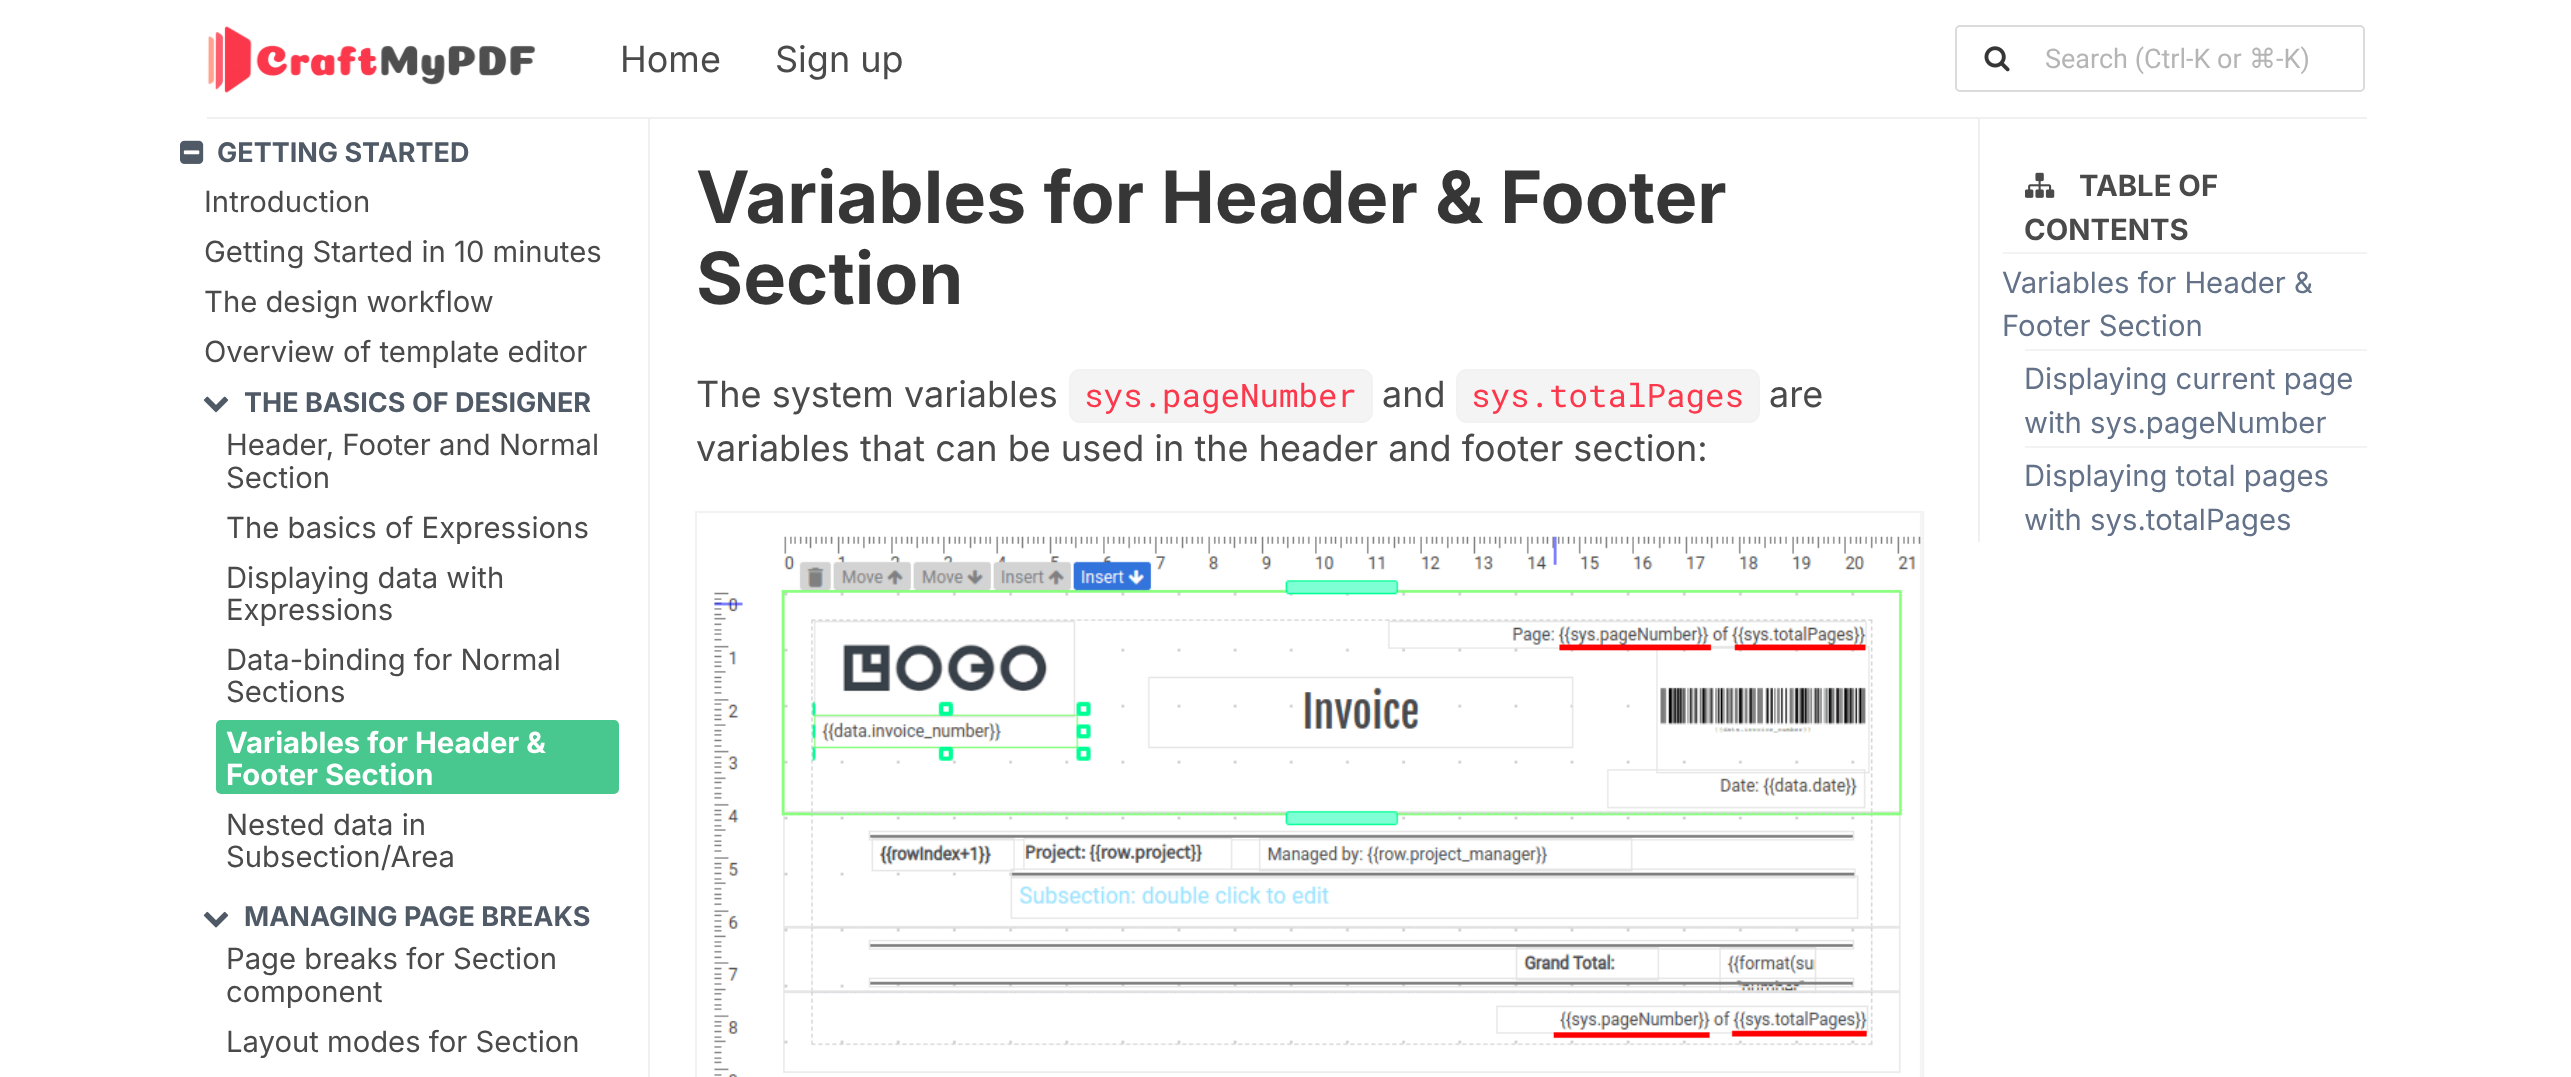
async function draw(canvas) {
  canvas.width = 2571
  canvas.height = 1077
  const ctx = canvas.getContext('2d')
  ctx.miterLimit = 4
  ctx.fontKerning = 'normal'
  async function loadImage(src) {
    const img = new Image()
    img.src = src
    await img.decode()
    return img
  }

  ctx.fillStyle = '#fff'
  ctx.fillRect(0, 0, 2571, 1077)
  ctx.fillStyle = '#f0f0f0'
  ctx.fillRect(207, 117, 2160, 2)
  ctx.drawImage(await loadImage('image0.png'), 207, 26, 329, 67)
  ctx.font = '36px Inter'
  ctx.fillStyle = '#4a4a4a'
  ctx.fillText('Home', 620, 72)
  ctx.fillText('Sign up', 775, 72)
  ctx.beginPath()
  ctx.roundRect(1956, 26, 408, 65, 4)
  ctx.strokeStyle = '#dbdbdb'
  ctx.lineWidth = 2
  ctx.stroke()
  ctx.drawImage(await loadImage('image1.png'), 1984, 46, 26, 26)
  ctx.font = '27px Roboto'
  ctx.fillStyle = '#b5b5b5'
  ctx.fillText('Search (Ctrl-K or', 2045, 68)
  ctx.font = '27px DejaVu Sans'
  ctx.fillText('⌘', 2249, 68)
  ctx.font = '27px Roboto'
  ctx.fillText('-K)', 2276, 68)
  ctx.drawImage(await loadImage('image2.png'), 180, 140, 24, 24)
  ctx.font = 'bold 27px Inter'
  ctx.fillStyle = '#4f5a66'
  ctx.fillText('GETTING STARTED', 217, 162)
  ctx.font = '29.25px Inter'
  ctx.fillStyle = '#4a4a4a'
  ctx.fillText('Introduction', 204, 212)
  ctx.fillText('Getting Started in 10 minutes', 204, 262)
  ctx.fillText('The design workflow', 204, 312)
  ctx.fillText('Overview of template editor', 204, 362)
  ctx.drawImage(await loadImage('image3.png'), 203, 396, 26, 17)
  ctx.font = 'bold 27px Inter'
  ctx.fillStyle = '#4f5a66'
  ctx.fillText('THE BASICS OF DESIGNER', 244, 412)
  ctx.font = '29.25px Inter'
  ctx.fillStyle = '#4a4a4a'
  ctx.fillText('Header, Footer and Normal', 226, 455)
  ctx.fillText('Section', 226, 488)
  ctx.fillText('The basics of Expressions', 226, 538)
  ctx.fillText('Displaying data with', 226, 588)
  ctx.fillText('Expressions', 226, 620)
  ctx.fillText('Data-binding for Normal', 226, 670)
  ctx.fillText('Sections', 226, 702)
  ctx.fillStyle = '#48c78e'
  ctx.beginPath()
  ctx.roundRect(216, 720, 403, 74, 5)
  ctx.fill()
  ctx.font = 'bold 29.25px Inter'
  ctx.fillStyle = '#fff'
  ctx.fillText('Variables for Header &', 226, 753)
  ctx.fillText('Footer Section', 226, 785)
  ctx.font = '29.25px Inter'
  ctx.fillStyle = '#4a4a4a'
  ctx.fillText('Nested data in', 226, 835)
  ctx.fillText('Subsection/Area', 226, 867)
  ctx.drawImage(await loadImage('image4.png'), 203, 911, 26, 17)
  ctx.font = 'bold 27px Inter'
  ctx.fillStyle = '#4f5a66'
  ctx.fillText('MANAGING PAGE BREAKS', 244, 926)
  ctx.font = '29.25px Inter'
  ctx.fillStyle = '#4a4a4a'
  ctx.fillText('Page breaks for Section', 226, 969)
  ctx.fillText('component', 226, 1002)
  ctx.fillText('Layout modes for Section', 226, 1052)
  ctx.fillStyle = '#f0f0f0'
  ctx.fillRect(648, 119, 2, 958)
  ctx.font = 'bold 72px Inter'
  ctx.fillStyle = '#363636'
  ctx.fillText('Variables for Header & Footer', 696, 223)
  ctx.fillText('Section', 696, 304)
  ctx.font = '36px Inter'
  ctx.fillStyle = '#4a4a4a'
  ctx.fillText('The system variables', 696, 407)
  ctx.fillStyle = '#f4f4f4'
  ctx.beginPath()
  ctx.roundRect(1070, 370, 302, 52, 10)
  ctx.fill()
  ctx.strokeStyle = '#f2f2f2'
  ctx.stroke()
  ctx.font = '32.5px Roboto Mono'
  ctx.fillStyle = '#fc384c'
  ctx.fillText('sys.pageNumber', 1084, 407)
  ctx.font = '36px Inter'
  ctx.fillStyle = '#4a4a4a'
  ctx.fillText('and', 1382, 407)
  ctx.fillStyle = '#f4f4f4'
  ctx.beginPath()
  ctx.roundRect(1457, 370, 302, 52, 10)
  ctx.fill()
  ctx.stroke()
  ctx.font = '32.5px Roboto Mono'
  ctx.fillStyle = '#fc384c'
  ctx.fillText('sys.totalPages', 1471, 407)
  ctx.font = '36px Inter'
  ctx.fillStyle = '#4a4a4a'
  ctx.fillText('are', 1769, 407)
  ctx.fillText('variables that can be used in the header and footer section:', 696, 461)
  ctx.strokeRect(696, 512, 1227, 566)
  ctx.drawImage(await loadImage('image5.png'), 714, 513, 1208, 564)
  ctx.fillStyle = '#f0f0f0'
  ctx.fillRect(1978, 119, 2, 423)
  ctx.drawImage(await loadImage('image6.png'), 2025, 172, 30, 26)
  ctx.font = 'bold 29.25px Inter'
  ctx.fillStyle = '#4a4a4a'
  ctx.fillText('TABLE OF', 2079, 196)
  ctx.fillText('CONTENTS', 2024, 240)
  ctx.fillStyle = '#f3f3f3'
  ctx.fillRect(2003, 252, 364, 2)
  ctx.font = '29.25px Inter'
  ctx.fillStyle = '#637288'
  ctx.fillText('Variables for Header &', 2002, 293)
  ctx.fillText('Footer Section', 2002, 336)
  ctx.fillStyle = '#f3f3f3'
  ctx.fillRect(2025, 349, 342, 2)
  ctx.fillStyle = '#637288'
  ctx.fillText('Displaying current page', 2024, 389)
  ctx.fillText('with sys.pageNumber', 2024, 433)
  ctx.fillStyle = '#f3f3f3'
  ctx.fillRect(2025, 446, 342, 2)
  ctx.fillStyle = '#637288'
  ctx.fillText('Displaying total pages', 2024, 486)
  ctx.fillText('with sys.totalPages', 2024, 530)
}

draw(document.querySelector('canvas'))
